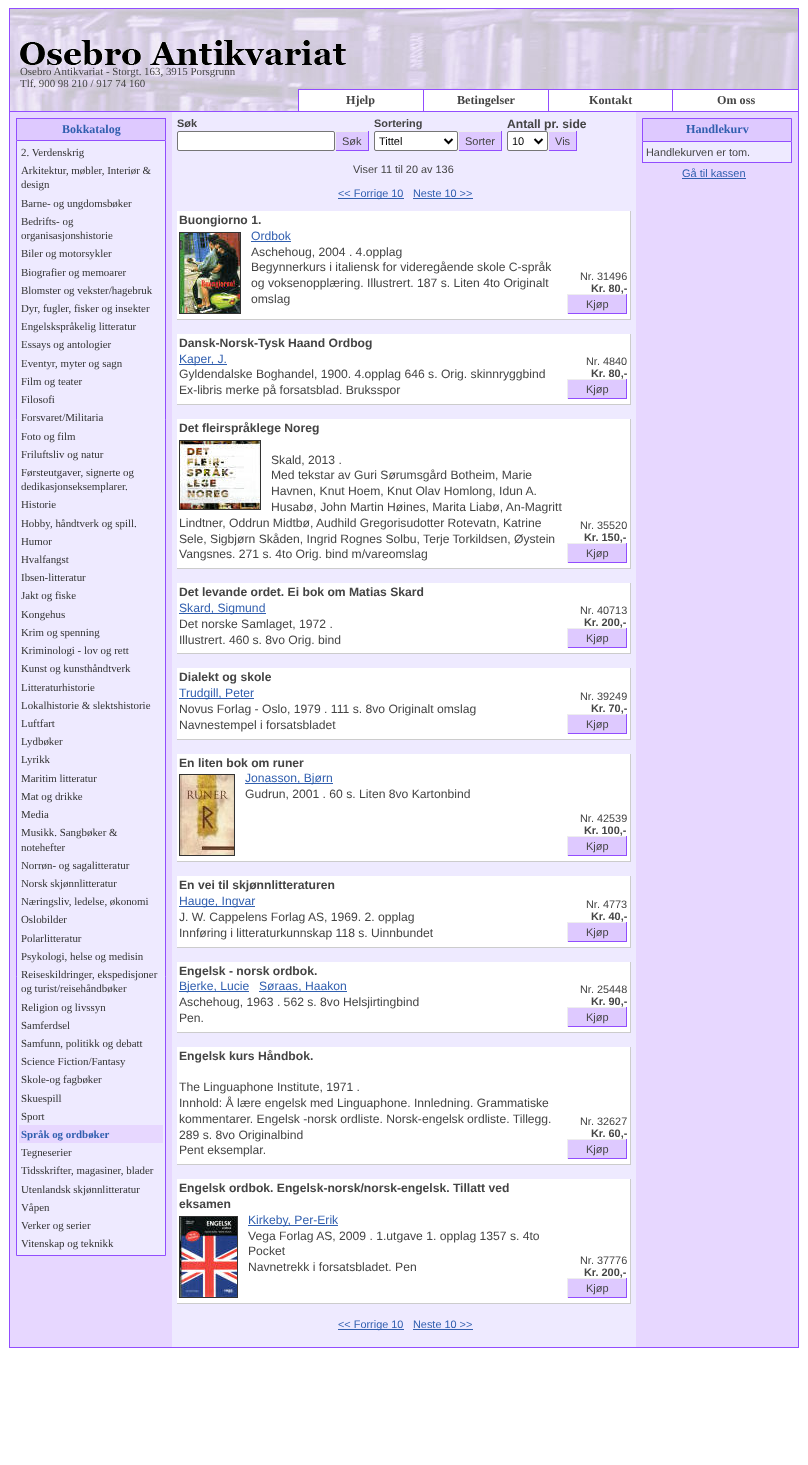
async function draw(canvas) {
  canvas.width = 808
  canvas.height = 1465
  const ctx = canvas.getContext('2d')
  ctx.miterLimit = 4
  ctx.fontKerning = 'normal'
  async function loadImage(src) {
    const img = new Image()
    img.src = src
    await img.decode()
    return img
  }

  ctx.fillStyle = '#fff'
  ctx.fillRect(0, 0, 808, 1465)
  ctx.strokeStyle = '#924dff'
  ctx.strokeRect(9.5, 8.5, 789, 1339)
  ctx.drawImage(await loadImage('image0.png'), 10, 9, 788, 102)
  ctx.fillStyle = '#924dff'
  ctx.fillRect(10, 111, 788, 1)
  ctx.drawImage(await loadImage('image1.png'), 20, 40, 326, 25)
  ctx.font = '10.9px Liberation Serif'
  ctx.fillStyle = '#444'
  ctx.fillText('Osebro Antikvariat - Storgt. 163, 3915 Porsgrunn', 20, 75)
  ctx.fillText('Tlf. 900 98 210 / 917 74 160', 20, 87)
  ctx.fillStyle = '#fff'
  ctx.fillRect(299, 90, 499, 21)
  ctx.fillStyle = '#924dff'
  ctx.fillRect(298, 89, 500, 1)
  ctx.fillRect(298, 89, 1, 22)
  ctx.fillRect(423, 90, 1, 21)
  ctx.font = 'bold 12.15px Liberation Serif'
  ctx.fillStyle = '#444'
  ctx.fillText('Hjelp', 346, 104)
  ctx.fillStyle = '#924dff'
  ctx.fillRect(548, 90, 1, 21)
  ctx.fillStyle = '#444'
  ctx.fillText('Betingelser', 457, 104)
  ctx.fillStyle = '#924dff'
  ctx.fillRect(672, 90, 1, 21)
  ctx.fillStyle = '#444'
  ctx.fillText('Kontakt', 589, 104)
  ctx.fillText('Om oss', 717, 104)
  ctx.fillStyle = '#e7d7ff'
  ctx.fillRect(10, 112, 162, 1235)
  ctx.fillStyle = '#dec9ff'
  ctx.fillRect(17, 119, 148, 21)
  ctx.fillStyle = '#924dff'
  ctx.fillRect(16, 118, 150, 1)
  ctx.fillRect(165, 118, 1, 22)
  ctx.fillRect(16, 118, 1, 22)
  ctx.font = 'bold 12px Liberation Serif'
  ctx.fillStyle = '#315faf'
  ctx.fillText('Bokkatalog', 62, 133)
  ctx.fillStyle = '#eeeaff'
  ctx.beginPath()
  ctx.rect(16.5, 140.5, 149, 1115)
  ctx.fill()
  ctx.stroke()
  ctx.font = '10.9px Liberation Serif'
  ctx.fillStyle = '#333'
  ctx.fillText('2. Verdenskrig', 21, 156)
  ctx.fillText('Arkitektur, møbler, Interiør &', 21, 174)
  ctx.fillText('design', 21, 188)
  ctx.fillText('Barne- og ungdomsbøker', 21, 207)
  ctx.fillText('Bedrifts- og', 21, 225)
  ctx.fillText('organisasjonshistorie', 21, 239)
  ctx.fillText('Biler og motorsykler', 21, 257)
  ctx.fillText('Biografier og memoarer', 21, 276)
  ctx.fillText('Blomster og vekster/hagebruk', 21, 294)
  ctx.fillText('Dyr, fugler, fisker og insekter', 21, 312)
  ctx.fillText('Engelskspråkelig litteratur', 21, 330)
  ctx.fillText('Essays og antologier', 21, 348)
  ctx.fillText('Eventyr, myter og sagn', 21, 367)
  ctx.fillText('Film og teater', 21, 385)
  ctx.fillText('Filosofi', 21, 403)
  ctx.fillText('Forsvaret/Militaria', 21, 421)
  ctx.fillText('Foto og film', 21, 440)
  ctx.fillText('Friluftsliv og natur', 21, 458)
  ctx.fillText('Førsteutgaver, signerte og', 21, 476)
  ctx.fillText('dedikasjonseksemplarer.', 21, 490)
  ctx.fillText('Historie', 21, 508)
  ctx.fillText('Hobby, håndtverk og spill.', 21, 527)
  ctx.fillText('Humor', 21, 545)
  ctx.fillText('Hvalfangst', 21, 563)
  ctx.fillText('Ibsen-litteratur', 21, 581)
  ctx.fillText('Jakt og fiske', 21, 599)
  ctx.fillText('Kongehus', 21, 618)
  ctx.fillText('Krim og spenning', 21, 636)
  ctx.fillText('Kriminologi - lov og rett', 21, 654)
  ctx.fillText('Kunst og kunsthåndtverk', 21, 672)
  ctx.fillText('Litteraturhistorie', 21, 691)
  ctx.fillText('Lokalhistorie & slektshistorie', 21, 709)
  ctx.fillText('Luftfart', 21, 727)
  ctx.fillText('Lydbøker', 21, 745)
  ctx.fillText('Lyrikk', 21, 763)
  ctx.fillText('Maritim litteratur', 21, 782)
  ctx.fillText('Mat og drikke', 21, 800)
  ctx.fillText('Media', 21, 818)
  ctx.fillText('Musikk. Sangbøker &', 21, 836)
  ctx.fillText('notehefter', 21, 851)
  ctx.fillText('Norrøn- og sagalitteratur', 21, 869)
  ctx.fillText('Norsk skjønnlitteratur', 21, 887)
  ctx.fillText('Næringsliv, ledelse, økonomi', 21, 905)
  ctx.fillText('Oslobilder', 21, 923)
  ctx.fillText('Polarlitteratur', 21, 942)
  ctx.fillText('Psykologi, helse og medisin', 21, 960)
  ctx.fillText('Reiseskildringer, ekspedisjoner', 21, 978)
  ctx.fillText('og turist/reisehåndbøker', 21, 992)
  ctx.fillText('Religion og livssyn', 21, 1011)
  ctx.fillText('Samferdsel', 21, 1029)
  ctx.fillText('Samfunn, politikk og debatt', 21, 1047)
  ctx.fillText('Science Fiction/Fantasy', 21, 1065)
  ctx.fillText('Skole-og fagbøker', 21, 1083)
  ctx.fillText('Skuespill', 21, 1102)
  ctx.fillText('Sport', 21, 1120)
  ctx.fillStyle = '#e7d7ff'
  ctx.fillRect(19, 1125, 144, 18)
  ctx.font = 'bold 10.9px Liberation Serif'
  ctx.fillStyle = '#315faf'
  ctx.fillText('Språk og ordbøker', 21, 1138)
  ctx.font = '10.9px Liberation Serif'
  ctx.fillStyle = '#333'
  ctx.fillText('Tegneserier', 21, 1156)
  ctx.fillText('Tidsskrifter, magasiner, blader', 21, 1174)
  ctx.fillText('Utenlandsk skjønnlitteratur', 21, 1193)
  ctx.fillText('Våpen', 21, 1211)
  ctx.fillText('Verker og serier', 21, 1229)
  ctx.fillText('Vitenskap og teknikk', 21, 1247)
  ctx.fillStyle = '#eeeaff'
  ctx.fillRect(172, 112, 464, 1235)
  ctx.font = 'bold 10.9px Liberation Sans'
  ctx.fillStyle = '#444'
  ctx.fillText('Søk', 177, 127)
  ctx.fillText('Sortering', 374, 127)
  ctx.font = 'bold 12.15px Liberation Sans'
  ctx.fillText('Antall pr. side', 507, 128)
  ctx.fillStyle = '#fff'
  ctx.beginPath()
  ctx.roundRect(177.5, 131.5, 157, 19, 1.5)
  ctx.fill()
  ctx.strokeStyle = '#767676'
  ctx.stroke()
  ctx.fillStyle = '#dec9ff'
  ctx.fillRect(336, 132, 32, 18)
  ctx.fillStyle = '#eee'
  ctx.fillRect(335, 131, 34, 1)
  ctx.fillStyle = '#924dff'
  ctx.fillRect(368, 131, 1, 20)
  ctx.fillRect(335, 150, 34, 1)
  ctx.fillStyle = '#eee'
  ctx.fillRect(335, 131, 1, 20)
  ctx.font = '11px Liberation Sans'
  ctx.fillStyle = '#444'
  ctx.fillText('Søk', 342, 145)
  ctx.fillStyle = '#fff'
  ctx.beginPath()
  ctx.roundRect(374.5, 131.5, 83, 19, 1.5)
  ctx.fill()
  ctx.stroke()
  ctx.beginPath()
  ctx.moveTo(444.5, 139)
  ctx.lineTo(448.5, 143)
  ctx.lineTo(452.5, 139)
  ctx.strokeStyle = '#000'
  ctx.lineWidth = 2
  ctx.stroke()
  ctx.fillStyle = '#000'
  ctx.fillText('Tittel', 379, 145)
  ctx.fillStyle = '#dec9ff'
  ctx.fillRect(459, 132, 42, 18)
  ctx.fillStyle = '#eee'
  ctx.fillRect(458, 131, 44, 1)
  ctx.fillStyle = '#924dff'
  ctx.fillRect(501, 131, 1, 20)
  ctx.fillRect(458, 150, 44, 1)
  ctx.fillStyle = '#eee'
  ctx.fillRect(458, 131, 1, 20)
  ctx.fillStyle = '#444'
  ctx.fillText('Sorter', 465, 145)
  ctx.fillStyle = '#fff'
  ctx.beginPath()
  ctx.roundRect(507.5, 131.5, 40, 19, 1.5)
  ctx.fill()
  ctx.strokeStyle = '#767676'
  ctx.lineWidth = 1
  ctx.stroke()
  ctx.beginPath()
  ctx.moveTo(534.5, 139)
  ctx.lineTo(538.5, 143)
  ctx.lineTo(542.5, 139)
  ctx.strokeStyle = '#000'
  ctx.lineWidth = 2
  ctx.stroke()
  ctx.fillStyle = '#000'
  ctx.fillText('10', 512, 145)
  ctx.fillStyle = '#dec9ff'
  ctx.fillRect(549, 132, 27, 18)
  ctx.fillStyle = '#eee'
  ctx.fillRect(548, 131, 29, 1)
  ctx.fillStyle = '#924dff'
  ctx.fillRect(576, 131, 1, 20)
  ctx.fillRect(548, 150, 29, 1)
  ctx.fillStyle = '#eee'
  ctx.fillRect(548, 131, 1, 20)
  ctx.fillStyle = '#444'
  ctx.fillText('Vis', 555, 145)
  ctx.font = '10.9px Liberation Sans'
  ctx.fillText('Viser 11 til 20 av 136', 353, 173)
  ctx.fillStyle = '#315faf'
  ctx.fillRect(338, 198, 66, 1)
  ctx.fillText('<< Forrige 10', 338, 197)
  ctx.fillText('Neste 10 >>', 413, 197)
  ctx.fillRect(413, 198, 60, 1)
  ctx.fillStyle = '#fff'
  ctx.fillRect(177, 211, 453, 108)
  ctx.fillStyle = '#ccc'
  ctx.fillRect(177, 319, 390, 1)
  ctx.font = 'bold 12.15px Liberation Sans'
  ctx.fillStyle = '#444'
  ctx.fillText('Buongiorno 1.', 179, 224)
  ctx.strokeStyle = '#333'
  ctx.lineWidth = 1
  ctx.strokeRect(179.5, 232.5, 61, 81)
  ctx.drawImage(await loadImage('image2.png'), 180, 233, 60, 80)
  ctx.font = '12.15px Liberation Sans'
  ctx.fillStyle = '#315faf'
  ctx.fillText('Ordbok', 251, 240)
  ctx.fillRect(251, 241, 40, 1)
  ctx.fillStyle = '#444'
  ctx.fillText('Aschehoug, 2004 . 4.opplag', 251, 256)
  ctx.fillText('Begynnerkurs i italiensk for videregående skole C-språk', 251, 271)
  ctx.fillText('og voksenopplæring. Illustrert. 187 s. Liten 4to Originalt', 251, 287)
  ctx.fillText('omslag', 251, 303)
  ctx.fillStyle = '#ccc'
  ctx.fillRect(630, 211, 1, 109)
  ctx.fillRect(567, 319, 64, 1)
  ctx.font = '10.9px Liberation Sans'
  ctx.fillStyle = '#444'
  ctx.fillText('Nr. 31496', 580, 280)
  ctx.font = 'bold 10.9px Liberation Sans'
  ctx.fillText('Kr. 80,-', 591, 292)
  ctx.fillStyle = '#dec9ff'
  ctx.fillRect(568, 295, 58, 18)
  ctx.fillStyle = '#eee'
  ctx.fillRect(567, 294, 60, 1)
  ctx.fillStyle = '#924dff'
  ctx.fillRect(626, 294, 1, 20)
  ctx.fillRect(567, 313, 60, 1)
  ctx.fillStyle = '#eee'
  ctx.fillRect(567, 294, 1, 20)
  ctx.font = '11px Liberation Sans'
  ctx.fillStyle = '#444'
  ctx.fillText('Kjøp', 586, 308)
  ctx.fillStyle = '#fff'
  ctx.fillRect(177, 334, 453, 70)
  ctx.fillStyle = '#ccc'
  ctx.fillRect(177, 404, 390, 1)
  ctx.font = 'bold 12.15px Liberation Sans'
  ctx.fillStyle = '#444'
  ctx.fillText('Dansk-Norsk-Tysk Haand Ordbog', 179, 347)
  ctx.fillStyle = '#315faf'
  ctx.fillRect(179, 364, 48, 1)
  ctx.font = '12.15px Liberation Sans'
  ctx.fillText('Kaper, J.', 179, 363)
  ctx.fillStyle = '#444'
  ctx.fillText('Gyldendalske Boghandel, 1900. 4.opplag 646 s. Orig. skinnryggbind', 179, 378)
  ctx.fillText('Ex-libris merke på forsatsblad. Bruksspor', 179, 394)
  ctx.fillStyle = '#ccc'
  ctx.fillRect(630, 334, 1, 71)
  ctx.fillRect(567, 404, 64, 1)
  ctx.font = '10.9px Liberation Sans'
  ctx.fillStyle = '#444'
  ctx.fillText('Nr. 4840', 586, 365)
  ctx.font = 'bold 10.9px Liberation Sans'
  ctx.fillText('Kr. 80,-', 591, 377)
  ctx.fillStyle = '#dec9ff'
  ctx.fillRect(568, 380, 58, 18)
  ctx.fillStyle = '#eee'
  ctx.fillRect(567, 379, 60, 1)
  ctx.fillStyle = '#924dff'
  ctx.fillRect(626, 379, 1, 20)
  ctx.fillRect(567, 398, 60, 1)
  ctx.fillStyle = '#eee'
  ctx.fillRect(567, 379, 1, 20)
  ctx.font = '11px Liberation Sans'
  ctx.fillStyle = '#444'
  ctx.fillText('Kjøp', 586, 393)
  ctx.fillStyle = '#fff'
  ctx.fillRect(177, 419, 453, 149)
  ctx.fillStyle = '#ccc'
  ctx.fillRect(177, 568, 390, 1)
  ctx.font = 'bold 12.15px Liberation Sans'
  ctx.fillStyle = '#444'
  ctx.fillText('Det fleirspråklege Noreg', 179, 432)
  ctx.strokeRect(179.5, 440.5, 81, 69)
  ctx.drawImage(await loadImage('image3.png'), 180, 441, 80, 68)
  ctx.font = '12.15px Liberation Sans'
  ctx.fillText('Skald, 2013 .', 271, 464)
  ctx.fillText('Med tekstar av Guri Sørumsgård Botheim, Marie', 271, 479)
  ctx.fillText('Havnen, Knut Hoem, Knut Olav Homlong, Idun A.', 271, 495)
  ctx.fillText('Husabø, John Martin Høines, Marita Liabø, An-Magritt', 271, 511)
  ctx.fillText('Lindtner, Oddrun Midtbø, Audhild Gregorisudotter Rotevatn, Katrine', 179, 527)
  ctx.fillText('Sele, Sigbjørn Skåden, Ingrid Rognes Solbu, Terje Torkildsen, Øystein', 179, 543)
  ctx.fillText('Vangsnes. 271 s. 4to Orig. bind m/vareomslag', 179, 558)
  ctx.fillStyle = '#ccc'
  ctx.fillRect(630, 419, 1, 150)
  ctx.fillRect(567, 568, 64, 1)
  ctx.font = '10.9px Liberation Sans'
  ctx.fillStyle = '#444'
  ctx.fillText('Nr. 35520', 580, 529)
  ctx.font = 'bold 10.9px Liberation Sans'
  ctx.fillText('Kr. 150,-', 584, 541)
  ctx.fillStyle = '#dec9ff'
  ctx.fillRect(568, 544, 58, 18)
  ctx.fillStyle = '#eee'
  ctx.fillRect(567, 543, 60, 1)
  ctx.fillStyle = '#924dff'
  ctx.fillRect(626, 543, 1, 20)
  ctx.fillRect(567, 562, 60, 1)
  ctx.fillStyle = '#eee'
  ctx.fillRect(567, 543, 1, 20)
  ctx.font = '11px Liberation Sans'
  ctx.fillStyle = '#444'
  ctx.fillText('Kjøp', 586, 557)
  ctx.fillStyle = '#fff'
  ctx.fillRect(177, 583, 453, 70)
  ctx.fillStyle = '#ccc'
  ctx.fillRect(177, 653, 390, 1)
  ctx.font = 'bold 12.15px Liberation Sans'
  ctx.fillStyle = '#444'
  ctx.fillText('Det levande ordet. Ei bok om Matias Skard', 179, 596)
  ctx.fillStyle = '#315faf'
  ctx.fillRect(179, 613, 87, 1)
  ctx.font = '12.15px Liberation Sans'
  ctx.fillText('Skard, Sigmund', 179, 612)
  ctx.fillStyle = '#444'
  ctx.fillText('Det norske Samlaget, 1972 .', 179, 628)
  ctx.fillText('Illustrert. 460 s. 8vo Orig. bind', 179, 644)
  ctx.fillStyle = '#ccc'
  ctx.fillRect(630, 583, 1, 71)
  ctx.fillRect(567, 653, 64, 1)
  ctx.font = '10.9px Liberation Sans'
  ctx.fillStyle = '#444'
  ctx.fillText('Nr. 40713', 580, 614)
  ctx.font = 'bold 10.9px Liberation Sans'
  ctx.fillText('Kr. 200,-', 584, 626)
  ctx.fillStyle = '#dec9ff'
  ctx.fillRect(568, 629, 58, 18)
  ctx.fillStyle = '#eee'
  ctx.fillRect(567, 628, 60, 1)
  ctx.fillStyle = '#924dff'
  ctx.fillRect(626, 628, 1, 20)
  ctx.fillRect(567, 647, 60, 1)
  ctx.fillStyle = '#eee'
  ctx.fillRect(567, 628, 1, 20)
  ctx.font = '11px Liberation Sans'
  ctx.fillStyle = '#444'
  ctx.fillText('Kjøp', 586, 642)
  ctx.fillStyle = '#fff'
  ctx.fillRect(177, 668, 453, 71)
  ctx.fillStyle = '#ccc'
  ctx.fillRect(177, 739, 390, 1)
  ctx.font = 'bold 12.15px Liberation Sans'
  ctx.fillStyle = '#444'
  ctx.fillText('Dialekt og skole', 179, 681)
  ctx.fillStyle = '#315faf'
  ctx.fillRect(179, 698, 75, 1)
  ctx.font = '12.15px Liberation Sans'
  ctx.fillText('Trudgill, Peter', 179, 697)
  ctx.fillStyle = '#444'
  ctx.fillText('Novus Forlag - Oslo, 1979 . 111 s. 8vo Originalt omslag', 179, 713)
  ctx.fillText('Navnestempel i forsatsbladet', 179, 729)
  ctx.fillStyle = '#ccc'
  ctx.fillRect(630, 668, 1, 72)
  ctx.fillRect(567, 739, 64, 1)
  ctx.font = '10.9px Liberation Sans'
  ctx.fillStyle = '#444'
  ctx.fillText('Nr. 39249', 580, 700)
  ctx.font = 'bold 10.9px Liberation Sans'
  ctx.fillText('Kr. 70,-', 591, 712)
  ctx.fillStyle = '#dec9ff'
  ctx.fillRect(568, 715, 58, 18)
  ctx.fillStyle = '#eee'
  ctx.fillRect(567, 714, 60, 1)
  ctx.fillStyle = '#924dff'
  ctx.fillRect(626, 714, 1, 20)
  ctx.fillRect(567, 733, 60, 1)
  ctx.fillStyle = '#eee'
  ctx.fillRect(567, 714, 1, 20)
  ctx.font = '11px Liberation Sans'
  ctx.fillStyle = '#444'
  ctx.fillText('Kjøp', 586, 728)
  ctx.fillStyle = '#fff'
  ctx.fillRect(177, 754, 453, 107)
  ctx.fillStyle = '#ccc'
  ctx.fillRect(177, 861, 390, 1)
  ctx.font = 'bold 12.15px Liberation Sans'
  ctx.fillStyle = '#444'
  ctx.fillText('En liten bok om runer', 179, 767)
  ctx.strokeRect(179.5, 774.5, 55, 81)
  ctx.drawImage(await loadImage('image4.png'), 180, 775, 54, 80)
  ctx.fillStyle = '#315faf'
  ctx.fillRect(245, 783, 88, 1)
  ctx.font = '12.15px Liberation Sans'
  ctx.fillText('Jonasson, Bjørn', 245, 782)
  ctx.fillStyle = '#444'
  ctx.fillText('Gudrun, 2001 . 60 s. Liten 8vo Kartonbind', 245, 798)
  ctx.fillStyle = '#ccc'
  ctx.fillRect(630, 754, 1, 108)
  ctx.fillRect(567, 861, 64, 1)
  ctx.font = '10.9px Liberation Sans'
  ctx.fillStyle = '#444'
  ctx.fillText('Nr. 42539', 580, 822)
  ctx.font = 'bold 10.9px Liberation Sans'
  ctx.fillText('Kr. 100,-', 584, 834)
  ctx.fillStyle = '#dec9ff'
  ctx.fillRect(568, 837, 58, 18)
  ctx.fillStyle = '#eee'
  ctx.fillRect(567, 836, 60, 1)
  ctx.fillStyle = '#924dff'
  ctx.fillRect(626, 836, 1, 20)
  ctx.fillRect(567, 855, 60, 1)
  ctx.fillStyle = '#eee'
  ctx.fillRect(567, 836, 1, 20)
  ctx.font = '11px Liberation Sans'
  ctx.fillStyle = '#444'
  ctx.fillText('Kjøp', 586, 850)
  ctx.fillStyle = '#fff'
  ctx.fillRect(177, 876, 453, 71)
  ctx.fillStyle = '#ccc'
  ctx.fillRect(177, 947, 390, 1)
  ctx.font = 'bold 12.15px Liberation Sans'
  ctx.fillStyle = '#444'
  ctx.fillText('En vei til skjønnlitteraturen', 179, 889)
  ctx.fillStyle = '#315faf'
  ctx.fillRect(179, 906, 76, 1)
  ctx.font = '12.15px Liberation Sans'
  ctx.fillText('Hauge, Ingvar', 179, 905)
  ctx.fillStyle = '#444'
  ctx.fillText('J. W. Cappelens Forlag AS, 1969. 2. opplag', 179, 921)
  ctx.fillText('Innføring i litteraturkunnskap 118 s. Uinnbundet', 179, 937)
  ctx.fillStyle = '#ccc'
  ctx.fillRect(630, 876, 1, 72)
  ctx.fillRect(567, 947, 64, 1)
  ctx.font = '10.9px Liberation Sans'
  ctx.fillStyle = '#444'
  ctx.fillText('Nr. 4773', 586, 908)
  ctx.font = 'bold 10.9px Liberation Sans'
  ctx.fillText('Kr. 40,-', 591, 920)
  ctx.fillStyle = '#dec9ff'
  ctx.fillRect(568, 923, 58, 18)
  ctx.fillStyle = '#eee'
  ctx.fillRect(567, 922, 60, 1)
  ctx.fillStyle = '#924dff'
  ctx.fillRect(626, 922, 1, 20)
  ctx.fillRect(567, 941, 60, 1)
  ctx.fillStyle = '#eee'
  ctx.fillRect(567, 922, 1, 20)
  ctx.font = '11px Liberation Sans'
  ctx.fillStyle = '#444'
  ctx.fillText('Kjøp', 586, 936)
  ctx.fillStyle = '#fff'
  ctx.fillRect(177, 962, 453, 70)
  ctx.fillStyle = '#ccc'
  ctx.fillRect(177, 1032, 390, 1)
  ctx.font = 'bold 12.15px Liberation Sans'
  ctx.fillStyle = '#444'
  ctx.fillText('Engelsk - norsk ordbok.', 179, 975)
  ctx.fillStyle = '#315faf'
  ctx.fillRect(179, 991, 70, 1)
  ctx.font = '12.15px Liberation Sans'
  ctx.fillText('Bjerke, Lucie', 179, 990)
  ctx.fillRect(259, 991, 88, 1)
  ctx.fillText('Søraas, Haakon', 259, 990)
  ctx.fillStyle = '#444'
  ctx.fillText('Aschehoug, 1963 . 562 s. 8vo Helsjirtingbind', 179, 1006)
  ctx.fillText('Pen.', 179, 1022)
  ctx.fillStyle = '#ccc'
  ctx.fillRect(630, 962, 1, 71)
  ctx.fillRect(567, 1032, 64, 1)
  ctx.font = '10.9px Liberation Sans'
  ctx.fillStyle = '#444'
  ctx.fillText('Nr. 25448', 580, 993)
  ctx.font = 'bold 10.9px Liberation Sans'
  ctx.fillText('Kr. 90,-', 591, 1005)
  ctx.fillStyle = '#dec9ff'
  ctx.fillRect(568, 1008, 58, 18)
  ctx.fillStyle = '#eee'
  ctx.fillRect(567, 1007, 60, 1)
  ctx.fillStyle = '#924dff'
  ctx.fillRect(626, 1007, 1, 20)
  ctx.fillRect(567, 1026, 60, 1)
  ctx.fillStyle = '#eee'
  ctx.fillRect(567, 1007, 1, 20)
  ctx.font = '11px Liberation Sans'
  ctx.fillStyle = '#444'
  ctx.fillText('Kjøp', 586, 1021)
  ctx.fillStyle = '#fff'
  ctx.fillRect(177, 1047, 453, 117)
  ctx.fillStyle = '#ccc'
  ctx.fillRect(177, 1164, 390, 1)
  ctx.font = 'bold 12.15px Liberation Sans'
  ctx.fillStyle = '#444'
  ctx.fillText('Engelsk kurs Håndbok.', 179, 1060)
  ctx.font = '12.15px Liberation Sans'
  ctx.fillText('The Linguaphone Institute, 1971 .', 179, 1091)
  ctx.fillText('Innhold: Å lære engelsk med Linguaphone. Innledning. Grammatiske', 179, 1107)
  ctx.fillText('kommentarer. Engelsk -norsk ordliste. Norsk-engelsk ordliste. Tillegg.', 179, 1123)
  ctx.fillText('289 s. 8vo Originalbind', 179, 1139)
  ctx.fillText('Pent eksemplar.', 179, 1154)
  ctx.fillStyle = '#ccc'
  ctx.fillRect(630, 1047, 1, 118)
  ctx.fillRect(567, 1164, 64, 1)
  ctx.font = '10.9px Liberation Sans'
  ctx.fillStyle = '#444'
  ctx.fillText('Nr. 32627', 580, 1125)
  ctx.font = 'bold 10.9px Liberation Sans'
  ctx.fillText('Kr. 60,-', 591, 1137)
  ctx.fillStyle = '#dec9ff'
  ctx.fillRect(568, 1140, 58, 18)
  ctx.fillStyle = '#eee'
  ctx.fillRect(567, 1139, 60, 1)
  ctx.fillStyle = '#924dff'
  ctx.fillRect(626, 1139, 1, 20)
  ctx.fillRect(567, 1158, 60, 1)
  ctx.fillStyle = '#eee'
  ctx.fillRect(567, 1139, 1, 20)
  ctx.font = '11px Liberation Sans'
  ctx.fillStyle = '#444'
  ctx.fillText('Kjøp', 586, 1153)
  ctx.fillStyle = '#fff'
  ctx.fillRect(177, 1179, 453, 124)
  ctx.fillStyle = '#ccc'
  ctx.fillRect(177, 1303, 390, 1)
  ctx.font = 'bold 12.15px Liberation Sans'
  ctx.fillStyle = '#444'
  ctx.fillText('Engelsk ordbok. Engelsk-norsk/norsk-engelsk. Tillatt ved', 179, 1192)
  ctx.fillText('eksamen', 179, 1208)
  ctx.strokeRect(179.5, 1216.5, 58, 81)
  ctx.drawImage(await loadImage('image5.png'), 180, 1217, 57, 80)
  ctx.fillStyle = '#315faf'
  ctx.fillRect(248, 1225, 90, 1)
  ctx.font = '12.15px Liberation Sans'
  ctx.fillText('Kirkeby, Per-Erik', 248, 1224)
  ctx.fillStyle = '#444'
  ctx.fillText('Vega Forlag AS, 2009 . 1.utgave 1. opplag 1357 s. 4to', 248, 1240)
  ctx.fillText('Pocket', 248, 1255)
  ctx.fillText('Navnetrekk i forsatsbladet. Pen', 248, 1271)
  ctx.fillStyle = '#ccc'
  ctx.fillRect(630, 1179, 1, 125)
  ctx.fillRect(567, 1303, 64, 1)
  ctx.font = '10.9px Liberation Sans'
  ctx.fillStyle = '#444'
  ctx.fillText('Nr. 37776', 580, 1264)
  ctx.font = 'bold 10.9px Liberation Sans'
  ctx.fillText('Kr. 200,-', 584, 1276)
  ctx.fillStyle = '#dec9ff'
  ctx.fillRect(568, 1279, 58, 18)
  ctx.fillStyle = '#eee'
  ctx.fillRect(567, 1278, 60, 1)
  ctx.fillStyle = '#924dff'
  ctx.fillRect(626, 1278, 1, 20)
  ctx.fillRect(567, 1297, 60, 1)
  ctx.fillStyle = '#eee'
  ctx.fillRect(567, 1278, 1, 20)
  ctx.font = '11px Liberation Sans'
  ctx.fillStyle = '#444'
  ctx.fillText('Kjøp', 586, 1292)
  ctx.fillStyle = '#315faf'
  ctx.fillRect(338, 1329, 66, 1)
  ctx.font = '10.9px Liberation Sans'
  ctx.fillText('<< Forrige 10', 338, 1328)
  ctx.fillText('Neste 10 >>', 413, 1328)
  ctx.fillRect(413, 1329, 60, 1)
  ctx.fillStyle = '#e7d7ff'
  ctx.fillRect(636, 112, 162, 1235)
  ctx.fillStyle = '#dec9ff'
  ctx.beginPath()
  ctx.rect(642.5, 118.5, 149, 23)
  ctx.fill()
  ctx.strokeStyle = '#924dff'
  ctx.stroke()
  ctx.font = 'bold 12.15px Liberation Serif'
  ctx.fillStyle = '#315faf'
  ctx.fillText('Handlekurv', 686, 133)
  ctx.fillStyle = '#eeeaff'
  ctx.fillRect(643, 142, 148, 20)
  ctx.fillStyle = '#924dff'
  ctx.fillRect(791, 142, 1, 21)
  ctx.fillRect(642, 162, 150, 1)
  ctx.fillRect(642, 142, 1, 21)
  ctx.font = '10.9px Liberation Sans'
  ctx.fillStyle = '#444'
  ctx.fillText('Handlekurven er tom.', 646, 156)
  ctx.font = '11px Liberation Sans'
  ctx.fillStyle = '#315faf'
  ctx.fillText('Gå til kassen', 682, 177)
  ctx.fillRect(682, 178, 64, 1)
}

draw(document.querySelector('canvas'))
